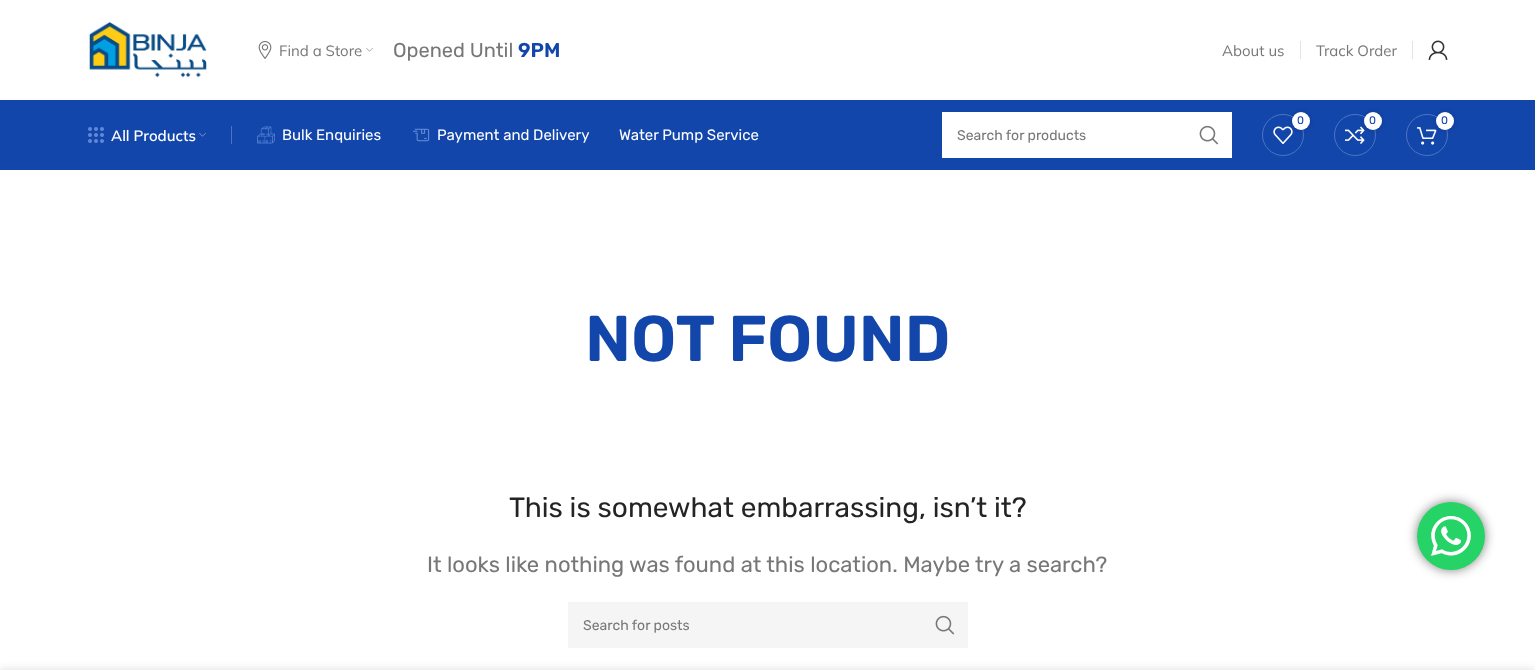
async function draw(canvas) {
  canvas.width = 1535
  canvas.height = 670
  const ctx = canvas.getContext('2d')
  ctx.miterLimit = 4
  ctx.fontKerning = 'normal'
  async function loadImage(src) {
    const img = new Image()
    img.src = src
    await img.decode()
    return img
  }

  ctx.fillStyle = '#fff'
  ctx.fillRect(0, 0, 1535, 670)
  ctx.drawImage(await loadImage('image0.png'), 89, 21, 118, 57)
  ctx.drawImage(await loadImage('image1.png'), 258, 41, 14, 18)
  ctx.font = '15px Mulish'
  ctx.fillStyle = '#777'
  ctx.fillText('Find a Store', 279, 56)
  ctx.drawImage(await loadImage('image2.png'), 366, 47, 7, 5)
  ctx.font = '20px Rubik'
  ctx.fillText('Opened Until', 393, 57)
  ctx.font = '600 20px Rubik'
  ctx.fillStyle = '#1246ab'
  ctx.fillText('9PM', 518, 57)
  ctx.font = '15px Mulish'
  ctx.fillStyle = '#777'
  ctx.fillText('About us', 1222, 56)
  ctx.fillStyle = '#e4e4e4'
  ctx.fillRect(1300, 41, 1, 18)
  ctx.fillStyle = '#777'
  ctx.fillText('Track Order', 1316, 56)
  ctx.fillStyle = '#e4e4e4'
  ctx.fillRect(1412, 41, 1, 18)
  ctx.drawImage(await loadImage('image3.png'), 1428, 40, 20, 20)
  ctx.fillStyle = '#1246ab'
  ctx.fillRect(0, 100, 1535, 70)
  ctx.drawImage(await loadImage('image4.png'), 88, 127, 16, 16)
  ctx.font = '600 15px Mulish'
  ctx.fillStyle = '#fff'
  ctx.fillText('All Products', 111, 141)
  ctx.drawImage(await loadImage('image5.png'), 199, 132, 7, 5)
  ctx.fillStyle = '#4d74c0'
  ctx.fillRect(231, 126, 1, 18)
  ctx.drawImage(await loadImage('image6.png'), 257, 126, 18, 18)
  ctx.font = '15px Rubik'
  ctx.fillStyle = '#fff'
  ctx.fillText('Bulk Enquiries', 282, 140)
  ctx.drawImage(await loadImage('image7.png'), 413, 128, 17, 14)
  ctx.fillText('Payment and Delivery', 437, 140)
  ctx.fillText('Water Pump Service', 619, 140)
  ctx.beginPath()
  ctx.arc(1283, 135, 20.5, 0, 2 * Math.PI)
  ctx.strokeStyle = '#4d74c0'
  ctx.stroke()
  ctx.drawImage(await loadImage('image8.png'), 1273, 126, 20, 18)
  ctx.fillStyle = '#0000002b'
  ctx.filter = 'blur(2px)'
  ctx.beginPath()
  ctx.roundRect(1292, 112, 18, 18, 9)
  ctx.fill()
  ctx.filter = 'none'
  ctx.fillStyle = '#fff'
  ctx.beginPath()
  ctx.arc(1301, 121, 9, 0, 2 * Math.PI)
  ctx.fill()
  ctx.font = '11px Rubik'
  ctx.fillStyle = '#1246ab'
  ctx.fillText('0', 1297, 124)
  ctx.beginPath()
  ctx.arc(1355, 135, 20.5, 0, 2 * Math.PI)
  ctx.stroke()
  ctx.drawImage(await loadImage('image9.png'), 1345, 126, 20, 18)
  ctx.fillStyle = '#0000002b'
  ctx.filter = 'blur(2px)'
  ctx.beginPath()
  ctx.roundRect(1364, 112, 18, 18, 9)
  ctx.fill()
  ctx.filter = 'none'
  ctx.fillStyle = '#fff'
  ctx.beginPath()
  ctx.arc(1373, 121, 9, 0, 2 * Math.PI)
  ctx.fill()
  ctx.fillStyle = '#1246ab'
  ctx.fillText('0', 1369, 124)
  ctx.beginPath()
  ctx.arc(1427, 135, 20.5, 0, 2 * Math.PI)
  ctx.stroke()
  ctx.drawImage(await loadImage('image10.png'), 1417, 127, 20, 18)
  ctx.fillStyle = '#0000002b'
  ctx.filter = 'blur(2px)'
  ctx.beginPath()
  ctx.roundRect(1436, 112, 18, 18, 9)
  ctx.fill()
  ctx.filter = 'none'
  ctx.fillStyle = '#fff'
  ctx.beginPath()
  ctx.arc(1445, 121, 9, 0, 2 * Math.PI)
  ctx.fill()
  ctx.fillStyle = '#1246ab'
  ctx.fillText('0', 1441, 124)
  ctx.fillStyle = '#fff'
  ctx.fillRect(942, 112, 290, 46)
  ctx.font = '14px Rubik'
  ctx.fillStyle = '#777'
  ctx.fillText('Search for products', 957, 140)
  ctx.drawImage(await loadImage('image11.png'), 1199, 125, 20, 20)
  ctx.font = '600 64.5px Rubik'
  ctx.fillStyle = '#1246ab'
  ctx.fillText('NOT FOUND', 585, 361)
  ctx.font = '28px Rubik'
  ctx.fillStyle = '#242424'
  ctx.fillText('This is somewhat embarrassing, isn’t it?', 509, 517)
  ctx.font = '22px Rubik'
  ctx.fillStyle = '#777'
  ctx.fillText('It looks like nothing was found at this location. Maybe try a search?', 427, 572)
  ctx.fillStyle = '#f5f5f5'
  ctx.fillRect(568, 602, 400, 46)
  ctx.font = '14px Rubik'
  ctx.fillStyle = '#777'
  ctx.fillText('Search for posts', 583, 630)
  ctx.drawImage(await loadImage('image12.png'), 935, 615, 20, 20)
  ctx.fillStyle = '#00000080'
  ctx.filter = 'blur(5.5px)'
  ctx.beginPath()
  ctx.roundRect(1417, 502, 68, 68, 34)
  ctx.fill()
  ctx.filter = 'none'
  ctx.fillStyle = '#25d366'
  ctx.beginPath()
  ctx.arc(1451, 536, 34, 0, 2 * Math.PI)
  ctx.fill()
  ctx.drawImage(await loadImage('image13.png'), 1431, 516, 40, 40)
  ctx.fillStyle = '#00000024'
  ctx.filter = 'blur(4.5px)'
  ctx.beginPath()
  ctx.rect(0, 670, 1535, 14)
  ctx.fill()
  ctx.filter = 'none'
}

draw(document.querySelector('canvas'))
